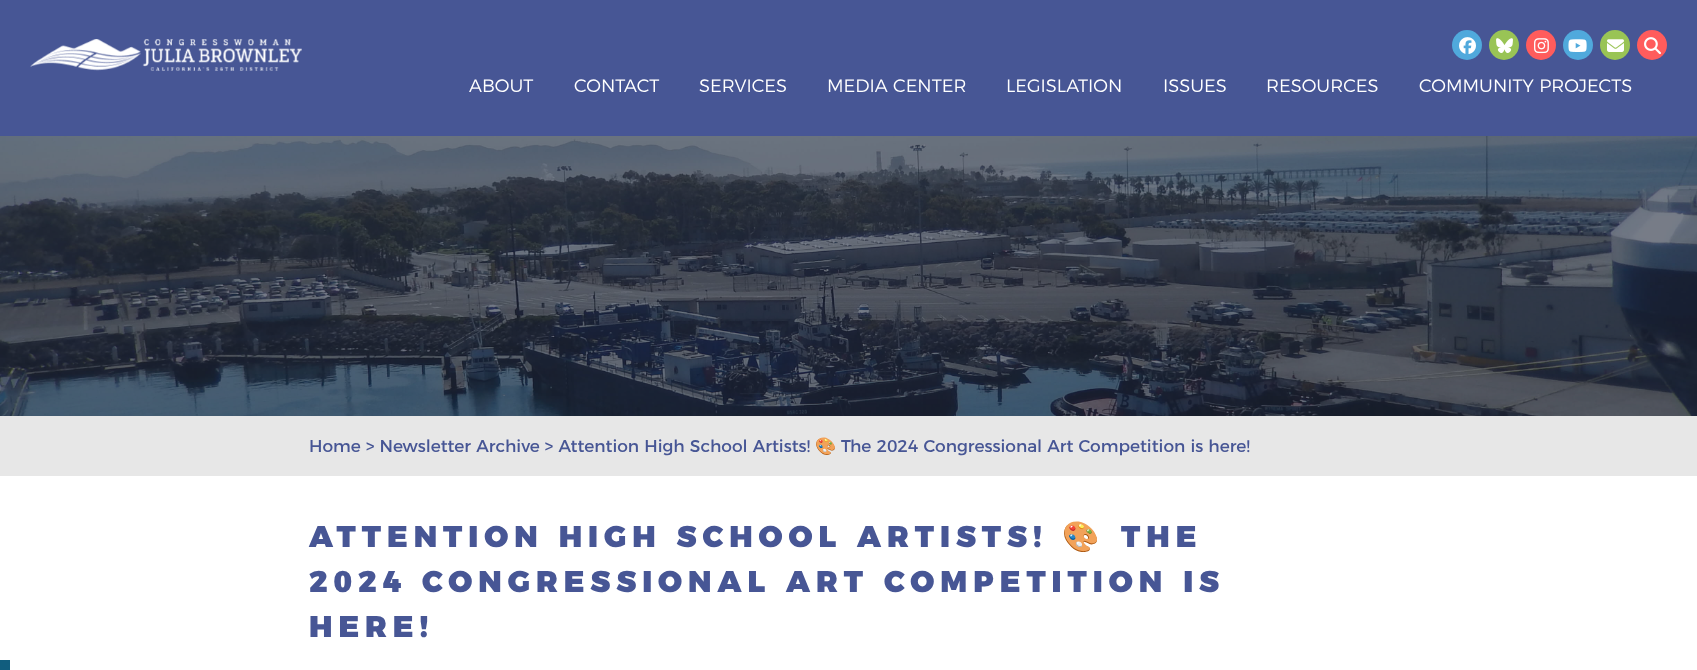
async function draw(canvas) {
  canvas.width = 1697
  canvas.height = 670
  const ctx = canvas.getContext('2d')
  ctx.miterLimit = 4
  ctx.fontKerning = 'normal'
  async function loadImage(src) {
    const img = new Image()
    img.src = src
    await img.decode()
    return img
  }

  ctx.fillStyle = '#fff'
  ctx.fillRect(0, 0, 1697, 670)
  ctx.fillStyle = '#475695'
  ctx.fillRect(0, 0, 1697, 136)
  ctx.drawImage(await loadImage('image0.png'), 30, 39, 272, 32)
  ctx.fillStyle = '#50a9dc'
  ctx.beginPath()
  ctx.arc(1467, 45, 15, 0, 2 * Math.PI)
  ctx.fill()
  ctx.drawImage(await loadImage('image1.png'), 1459, 37, 17, 17)
  ctx.fillStyle = '#99c455'
  ctx.beginPath()
  ctx.arc(1504, 45, 15, 0, 2 * Math.PI)
  ctx.fill()
  ctx.drawImage(await loadImage('image2.png'), 1496, 38, 17, 15)
  ctx.fillStyle = '#ff5c5c'
  ctx.beginPath()
  ctx.arc(1541, 45, 15, 0, 2 * Math.PI)
  ctx.fill()
  ctx.drawImage(await loadImage('image3.png'), 1534, 38, 15, 16)
  ctx.fillStyle = '#50a9dc'
  ctx.beginPath()
  ctx.arc(1578, 45, 15, 0, 2 * Math.PI)
  ctx.fill()
  ctx.drawImage(await loadImage('image4.png'), 1568, 39, 19, 13)
  ctx.fillStyle = '#99c455'
  ctx.beginPath()
  ctx.arc(1615, 45, 15, 0, 2 * Math.PI)
  ctx.fill()
  ctx.drawImage(await loadImage('image5.png'), 1607, 39, 17, 13)
  ctx.fillStyle = '#ff5c5c'
  ctx.beginPath()
  ctx.arc(1652, 45, 15, 0, 2 * Math.PI)
  ctx.fill()
  ctx.drawImage(await loadImage('image6.png'), 1644, 37, 17, 18)
  ctx.font = '300 18px Montserrat'
  ctx.fillStyle = '#fff'
  ctx.fillText('ABOUT', 469, 92)
  ctx.fillText('CONTACT', 574, 92)
  ctx.fillText('SERVICES', 699, 92)
  ctx.fillText('MEDIA CENTER', 827, 92)
  ctx.fillText('LEGISLATION', 1006, 92)
  ctx.fillText('ISSUES', 1163, 92)
  ctx.fillText('RESOURCES', 1266, 92)
  ctx.fillText('COMMUNITY PROJECTS', 1419, 92)
  ctx.drawImage(await loadImage('image7.png'), 0, 136, 1697, 280)
  ctx.fillStyle = '#e7e7e7'
  ctx.fillRect(0, 416, 1697, 60)
  ctx.font = '17px Montserrat'
  ctx.fillStyle = '#475695'
  ctx.fillText('Home > Newsletter Archive > Attention High School Artists!', 309, 452)
  ctx.font = '17px Noto Color Emoji'
  ctx.fillText('🎨', 815, 452)
  ctx.font = '17px Montserrat'
  ctx.fillText('The 2024 Congressional Art Competition is here!', 841, 452)
  ctx.letterSpacing = '6px'
  ctx.font = '900 30px Montserrat'
  ctx.fillText('ATTENTION HIGH SCHOOL ARTISTS!', 309, 547)
  ctx.font = '30px Noto Color Emoji'
  ctx.fillText('🎨', 1062, 547)
  ctx.font = '900 30px Montserrat'
  ctx.fillText('THE', 1121, 547)
  ctx.fillText('2024 CONGRESSIONAL ART COMPETITION IS', 309, 592)
  ctx.fillText('HERE!', 309, 637)
  ctx.fillStyle = '#115d7e'
  ctx.fillRect(0, 660, 10, 10)
}

draw(document.querySelector('canvas'))
